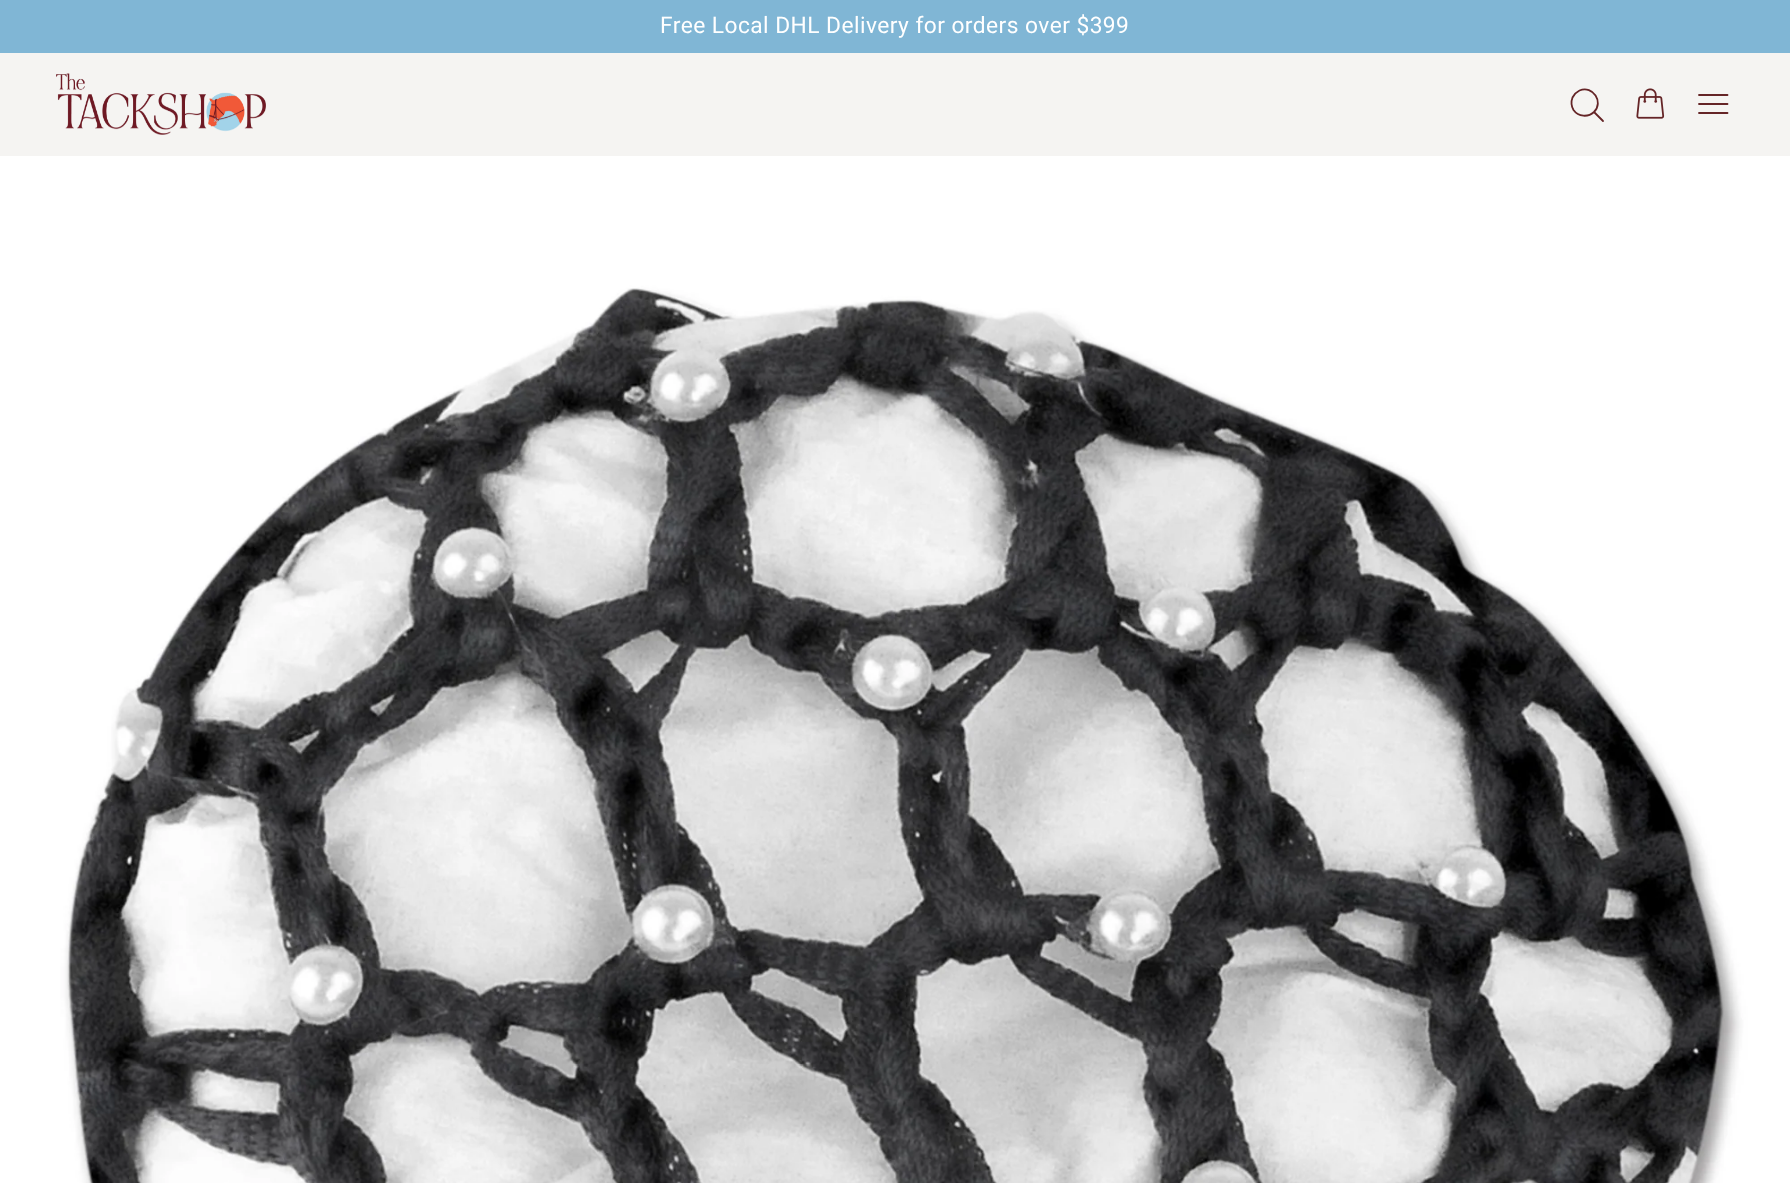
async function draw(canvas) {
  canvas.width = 1790
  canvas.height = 1183
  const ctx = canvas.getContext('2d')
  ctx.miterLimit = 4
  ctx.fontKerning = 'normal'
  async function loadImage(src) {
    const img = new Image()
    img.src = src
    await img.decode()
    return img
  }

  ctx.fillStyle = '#fff'
  ctx.fillRect(0, 0, 1790, 1183)
  ctx.fillStyle = '#f5f4f2'
  ctx.fillRect(0, 53, 1790, 103)
  ctx.fillStyle = '#80b6d5'
  ctx.fillRect(0, 0, 1790, 53)
  ctx.letterSpacing = '0.45px'
  ctx.font = '22.75px Roboto'
  ctx.fillStyle = '#fff'
  ctx.fillText('Free Local DHL Delivery for orders over $399', 660, 33)
  ctx.drawImage(await loadImage('image0.png'), 56, 73, 210, 62)
  ctx.beginPath()
  ctx.moveTo(1603, 121)
  ctx.lineTo(1594, 112)
  ctx.moveTo(1594, 112)
  ctx.bezierCurveTo(1604, 102, 1593, 85, 1579.5, 90.5)
  ctx.bezierCurveTo(1576.5, 92, 1574, 94.5, 1572.5, 97.5)
  ctx.bezierCurveTo(1571, 101.5, 1571.5, 106.5, 1573.5, 110)
  ctx.bezierCurveTo(1578.5, 117, 1588, 117.5, 1594, 112)
  ctx.closePath()
  ctx.strokeStyle = '#652527'
  ctx.lineWidth = 1.8
  ctx.lineCap = 'round'
  ctx.lineJoin = 'round'
  ctx.stroke()
  ctx.drawImage(await loadImage('image1.png'), 1636, 88, 29, 31)
  ctx.beginPath()
  ctx.moveTo(1699, 95)
  ctx.lineTo(1727.5, 95)
  ctx.moveTo(1699, 104)
  ctx.lineTo(1727.5, 104)
  ctx.moveTo(1699, 113)
  ctx.lineTo(1727.5, 113)
  ctx.stroke()
  ctx.drawImage(await loadImage('image2.png'), 0, 156, 1790, 1027)
}

draw(document.querySelector('canvas'))
